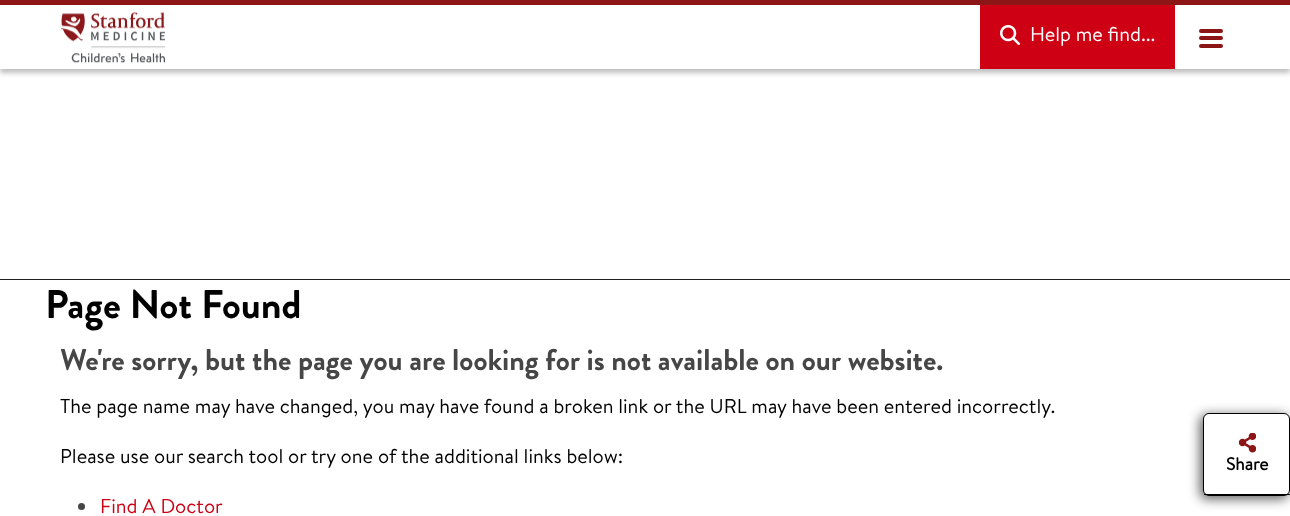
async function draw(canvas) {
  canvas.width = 1290
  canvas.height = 516
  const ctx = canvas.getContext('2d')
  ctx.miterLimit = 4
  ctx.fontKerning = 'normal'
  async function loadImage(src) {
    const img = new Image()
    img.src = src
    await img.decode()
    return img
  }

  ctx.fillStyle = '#fff'
  ctx.fillRect(0, 0, 1290, 516)
  ctx.fillStyle = '#202020'
  ctx.fillRect(0, 279, 1290, 1)
  ctx.fillStyle = '#00000040'
  ctx.filter = 'blur(2.5px)'
  ctx.beginPath()
  ctx.rect(0, 4, 1290, 69)
  ctx.fill()
  ctx.filter = 'none'
  ctx.fillStyle = '#fff'
  ctx.fillRect(0, 5, 1290, 64)
  ctx.fillStyle = '#8c1515'
  ctx.fillRect(0, 0, 1290, 5)
  ctx.drawImage(await loadImage('image0.png'), 60, 12, 105, 51)
  ctx.fillStyle = '#ce0014'
  ctx.fillRect(980, 5, 195, 64)
  ctx.drawImage(await loadImage('image1.png'), 1000, 25, 20, 20)
  ctx.font = '20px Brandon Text'
  ctx.fillStyle = '#fff'
  ctx.fillText('Help me find...', 1030, 41)
  ctx.fillStyle = '#8c1515'
  ctx.beginPath()
  ctx.roundRect(1199, 29, 24, 4, 2)
  ctx.fill()
  ctx.beginPath()
  ctx.roundRect(1199, 36, 24, 4, 2)
  ctx.fill()
  ctx.beginPath()
  ctx.roundRect(1199, 44, 24, 4, 2)
  ctx.fill()
  ctx.font = '40px Brandon Grotesque'
  ctx.fillStyle = '#000'
  ctx.fillText('Page Not Found', 45, 318)
  ctx.font = '30px Brandon Grotesque'
  ctx.fillStyle = '#464647'
  ctx.fillText('We\'re sorry, but the page you are looking for is not available on our website.', 60, 370)
  ctx.font = '20px Brandon Text'
  ctx.fillStyle = '#000'
  ctx.fillText('The page name may have changed, you may have found a broken link or the URL may have been entered incorrectly.', 60, 413)
  ctx.fillText('Please use our search tool or try one of the additional links below:', 60, 463)
  ctx.fillStyle = '#464647'
  ctx.beginPath()
  ctx.arc(81.5, 506.5, 3.5, 0, 2 * Math.PI)
  ctx.fill()
  ctx.fillStyle = '#ce0014'
  ctx.fillText('Find A Doctor', 100, 513)
  ctx.fillStyle = '#000000a1'
  ctx.filter = 'blur(6px)'
  ctx.beginPath()
  ctx.roundRect(1200, 415, 88, 84, 6)
  ctx.fill()
  ctx.filter = 'none'
  ctx.fillStyle = '#fff'
  ctx.beginPath()
  ctx.roundRect(1203.5, 413.5, 86, 82, 5.5)
  ctx.fill()
  ctx.strokeStyle = '#000'
  ctx.stroke()
  ctx.fillStyle = '#000'
  ctx.fillRect(1204, 494, 86, 1)
  ctx.drawImage(await loadImage('image2.png'), 1239, 433, 17, 20)
  ctx.font = 'bold 17.5px Brandon Text'
  ctx.fillText('Share', 1226, 470)
}

draw(document.querySelector('canvas'))
